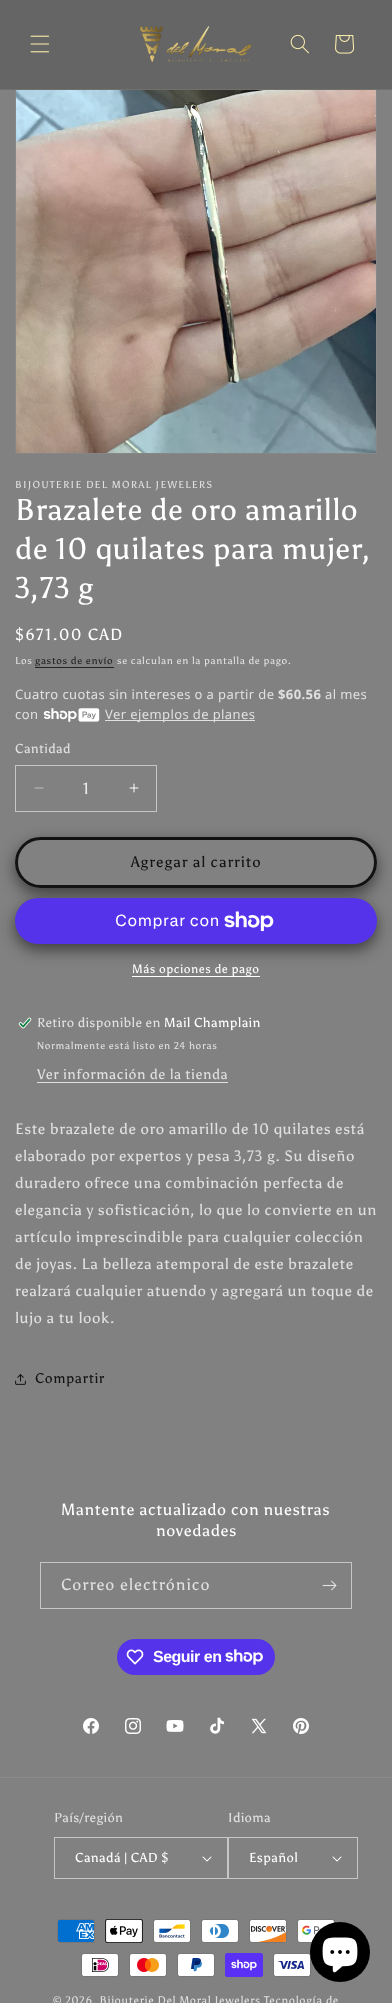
async function draw(canvas) {
  canvas.width = 392
  canvas.height = 2003
  const ctx = canvas.getContext('2d')
  ctx.miterLimit = 4
  ctx.fontKerning = 'normal'
  async function loadImage(src) {
    const img = new Image()
    img.src = src
    await img.decode()
    return img
  }

  ctx.fillStyle = '#818181'
  ctx.fillRect(0, 0, 392, 2003)
  ctx.strokeStyle = '#878787'
  ctx.strokeRect(15.5, 35.5, 361, 418)
  ctx.fillStyle = '#656565'
  ctx.fillRect(0, 0, 392, 89)
  ctx.fillStyle = '#71706b'
  ctx.fillRect(0, 89, 392, 1)
  ctx.drawImage(await loadImage('image0.png'), 30, 35, 20, 18)
  ctx.drawImage(await loadImage('image1.png'), 139, 26, 113, 37)
  ctx.drawImage(await loadImage('image2.png'), 290, 34, 19, 20)
  ctx.drawImage(await loadImage('image3.png'), 335, 35, 20, 19)
  ctx.drawImage(await loadImage('image4.png'), 16, 90, 360, 363)
  ctx.letterSpacing = '1.3px'
  ctx.font = '10px Asul'
  ctx.fillStyle = '#e0e0e0'
  ctx.fillText('BIJOUTERIE DEL MORAL JEWELERS', 15, 488)
  ctx.letterSpacing = '0.6px'
  ctx.font = '30px Asul'
  ctx.fillStyle = '#fff'
  ctx.fillText('Brazalete de oro amarillo', 15, 520)
  ctx.fillText('de 10 quilates para mujer,', 15, 559)
  ctx.fillText('3,73 g', 15, 598)
  ctx.letterSpacing = '1.3px'
  ctx.font = '16px Asul'
  ctx.fillText('$671.00 CAD', 15, 640)
  ctx.letterSpacing = '0.7px'
  ctx.font = '10px Asul'
  ctx.fillStyle = '#e0e0e0'
  ctx.fillText('Los', 15, 664)
  ctx.fillStyle = '#232323'
  ctx.fillText('gastos de envío', 35, 664)
  ctx.fillRect(35, 667, 79, 1)
  ctx.fillStyle = '#e0e0e0'
  ctx.fillText('se calculan en la pantalla de pago.', 117, 664)
  ctx.letterSpacing = '0.4px'
  ctx.font = '13px Noto Sans'
  ctx.fillText('Cuatro cuotas sin intereses o a partir de', 15, 699)
  ctx.font = 'bold 13px Noto Sans'
  ctx.fillText('$60.56', 278, 699)
  ctx.font = '13px Noto Sans'
  ctx.fillText('al mes', 325, 699)
  ctx.fillText('con', 15, 719)
  ctx.drawImage(await loadImage('image5.png'), 43, 708, 57, 14)
  ctx.fillRect(105, 720, 150, 1)
  ctx.fillText('Ver ejemplos de planes', 105, 719)
  ctx.font = '13px Asul'
  ctx.fillText('Cantidad', 15, 753)
  ctx.drawImage(await loadImage('image6.png'), 34, 787, 10, 2)
  ctx.drawImage(await loadImage('image7.png'), 129, 783, 10, 10)
  ctx.strokeStyle = '#c6c6c6'
  ctx.strokeRect(15.5, 765.5, 141, 46)
  ctx.letterSpacing = '0px'
  ctx.font = '16px Asul'
  ctx.fillStyle = '#ececec'
  ctx.fillText('1', 83, 794)
  ctx.fillStyle = '#12121299'
  ctx.filter = 'blur(7.5px)'
  ctx.beginPath()
  ctx.roundRect(15, 843, 362, 51, 25.5)
  ctx.fill()
  ctx.filter = 'none'
  ctx.filter = 'blur(7.5px)'
  ctx.beginPath()
  ctx.roundRect(15, 904, 362, 46, 23)
  ctx.fill()
  ctx.filter = 'none'
  ctx.fillStyle = '#818181'
  ctx.beginPath()
  ctx.roundRect(15, 837, 362, 51, 25.5)
  ctx.fill()
  ctx.beginPath()
  ctx.roundRect(16.5, 838.5, 359, 48, 24)
  ctx.strokeStyle = '#818181'
  ctx.lineWidth = 3
  ctx.stroke()
  ctx.beginPath()
  ctx.roundRect(16.5, 838.5, 359, 48, 24)
  ctx.strokeStyle = '#121212'
  ctx.stroke()
  ctx.letterSpacing = '1px'
  ctx.font = '15px Asul'
  ctx.fillStyle = '#121212'
  ctx.fillText('Agregar al carrito', 131, 867)
  ctx.fillStyle = '#5433eb'
  ctx.beginPath()
  ctx.roundRect(15, 898, 362, 46, 23)
  ctx.fill()
  ctx.letterSpacing = '0.6px'
  ctx.font = '16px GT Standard'
  ctx.fillStyle = '#fff'
  ctx.fillText('Comprar con', 115, 926)
  ctx.drawImage(await loadImage('image8.png'), 224, 911, 50, 20)
  ctx.letterSpacing = '0.5px'
  ctx.font = '12px Asul'
  ctx.fillText('Más opciones de pago', 132, 973)
  ctx.fillRect(132, 976, 128, 1)
  ctx.drawImage(await loadImage('image9.png'), 18, 1017, 14, 12)
  ctx.letterSpacing = '0.4px'
  ctx.font = '13px Asul'
  ctx.fillStyle = '#e0e0e0'
  ctx.fillText('Retiro disponible en', 37, 1027)
  ctx.fillStyle = '#fff'
  ctx.fillText('Mail Champlain', 164, 1027)
  ctx.letterSpacing = '0.7px'
  ctx.font = '10px Asul'
  ctx.fillStyle = '#e0e0e0'
  ctx.fillText('Normalmente está listo en 24 horas', 37, 1049)
  ctx.letterSpacing = '0.6px'
  ctx.font = '14px Asul'
  ctx.fillText('Ver información de la tienda', 37, 1079)
  ctx.fillRect(37, 1082, 191, 1)
  ctx.font = '15px Asul'
  ctx.fillText('Este brazalete de oro amarillo de 10 quilates está', 15, 1134)
  ctx.fillText('elaborado por expertos y pesa 3,73 g. Su diseño', 15, 1161)
  ctx.fillText('duradero ofrece una combinación perfecta de', 15, 1188)
  ctx.fillText('elegancia y sofisticación, lo que lo convierte en un', 15, 1215)
  ctx.fillText('artículo imprescindible para cualquier colección', 15, 1242)
  ctx.fillText('de joyas. La belleza atemporal de este brazalete', 15, 1269)
  ctx.fillText('realzará cualquier atuendo y agregará un toque de', 15, 1296)
  ctx.fillText('lujo a tu look.', 15, 1323)
  ctx.drawImage(await loadImage('image10.png'), 15, 1374, 11, 11)
  ctx.font = '14px Asul'
  ctx.fillStyle = '#121212'
  ctx.fillText('Compartir', 35, 1383)
  ctx.font = '16px Asul'
  ctx.fillStyle = '#fff'
  ctx.fillText('Mantente actualizado con nuestras', 61, 1515)
  ctx.fillText('novedades', 156, 1536)
  ctx.strokeStyle = '#c6c6c6'
  ctx.lineWidth = 1
  ctx.strokeRect(40.5, 1562.5, 311, 46)
  ctx.letterSpacing = '1px'
  ctx.fillStyle = '#e0e0e0'
  ctx.fillText('Correo electrónico', 61, 1590)
  ctx.drawImage(await loadImage('image11.png'), 322, 1580, 15, 11)
  ctx.fillStyle = '#5433eb'
  ctx.beginPath()
  ctx.roundRect(117, 1639, 158, 36, 18)
  ctx.fill()
  ctx.drawImage(await loadImage('image12.png'), 126, 1649, 18, 16)
  ctx.letterSpacing = '-0.5px'
  ctx.font = 'bold 16px Liberation Sans'
  ctx.fillStyle = '#fff'
  ctx.fillText('Seguir en', 153, 1662)
  ctx.drawImage(await loadImage('image13.png'), 225, 1649, 38, 16)
  ctx.drawImage(await loadImage('image14.png'), 83, 1718, 16, 16)
  ctx.drawImage(await loadImage('image15.png'), 125, 1718, 16, 16)
  ctx.drawImage(await loadImage('image16.png'), 166, 1720, 18, 12)
  ctx.drawImage(await loadImage('image17.png'), 210, 1717, 15, 17)
  ctx.drawImage(await loadImage('image18.png'), 251, 1718, 16, 16)
  ctx.drawImage(await loadImage('image19.png'), 293, 1718, 16, 16)
  ctx.fillStyle = '#8b8b8b'
  ctx.fillRect(0, 1777, 392, 1)
  ctx.letterSpacing = '0.4px'
  ctx.font = '13px Asul'
  ctx.fillStyle = '#e0e0e0'
  ctx.fillText('País/región', 54, 1822)
  ctx.drawImage(await loadImage('image20.png'), 202, 1856, 10, 6)
  ctx.strokeRect(54.5, 1837.5, 173, 41)
  ctx.fillStyle = '#fff'
  ctx.fillText('Canadá | CAD $', 75, 1862)
  ctx.fillStyle = '#e0e0e0'
  ctx.fillText('Idioma', 228, 1822)
  ctx.drawImage(await loadImage('image20.png'), 332, 1856, 10, 6)
  ctx.strokeRect(228.5, 1837.5, 129, 41)
  ctx.fillStyle = '#fff'
  ctx.fillText('Español', 249, 1862)
  ctx.drawImage(await loadImage('image21.png'), 57, 1919, 38, 24)
  ctx.drawImage(await loadImage('image22.png'), 105, 1919, 38, 24)
  ctx.drawImage(await loadImage('image23.png'), 153, 1919, 38, 24)
  ctx.drawImage(await loadImage('image24.png'), 201, 1919, 38, 24)
  ctx.drawImage(await loadImage('image25.png'), 249, 1919, 38, 24)
  ctx.drawImage(await loadImage('image26.png'), 297, 1919, 38, 24)
  ctx.drawImage(await loadImage('image27.png'), 81, 1953, 38, 24)
  ctx.drawImage(await loadImage('image28.png'), 129, 1953, 38, 24)
  ctx.drawImage(await loadImage('image29.png'), 177, 1953, 38, 24)
  ctx.drawImage(await loadImage('image30.png'), 225, 1953, 38, 24)
  ctx.drawImage(await loadImage('image31.png'), 273, 1953, 38, 24)
  ctx.letterSpacing = '0.7px'
  ctx.font = '11px Asul'
  ctx.fillStyle = '#e0e0e0'
  ctx.fillText('© 2026, Bijouterie Del Moral Jewelers Tecnología de', 53, 2004)
  ctx.fillStyle = '#000'
  ctx.beginPath()
  ctx.arc(340, 1952, 30, 0, 2 * Math.PI)
  ctx.fill()
  ctx.drawImage(await loadImage('image32.png'), 322, 1937, 36, 36)
}

draw(document.querySelector('canvas'))
